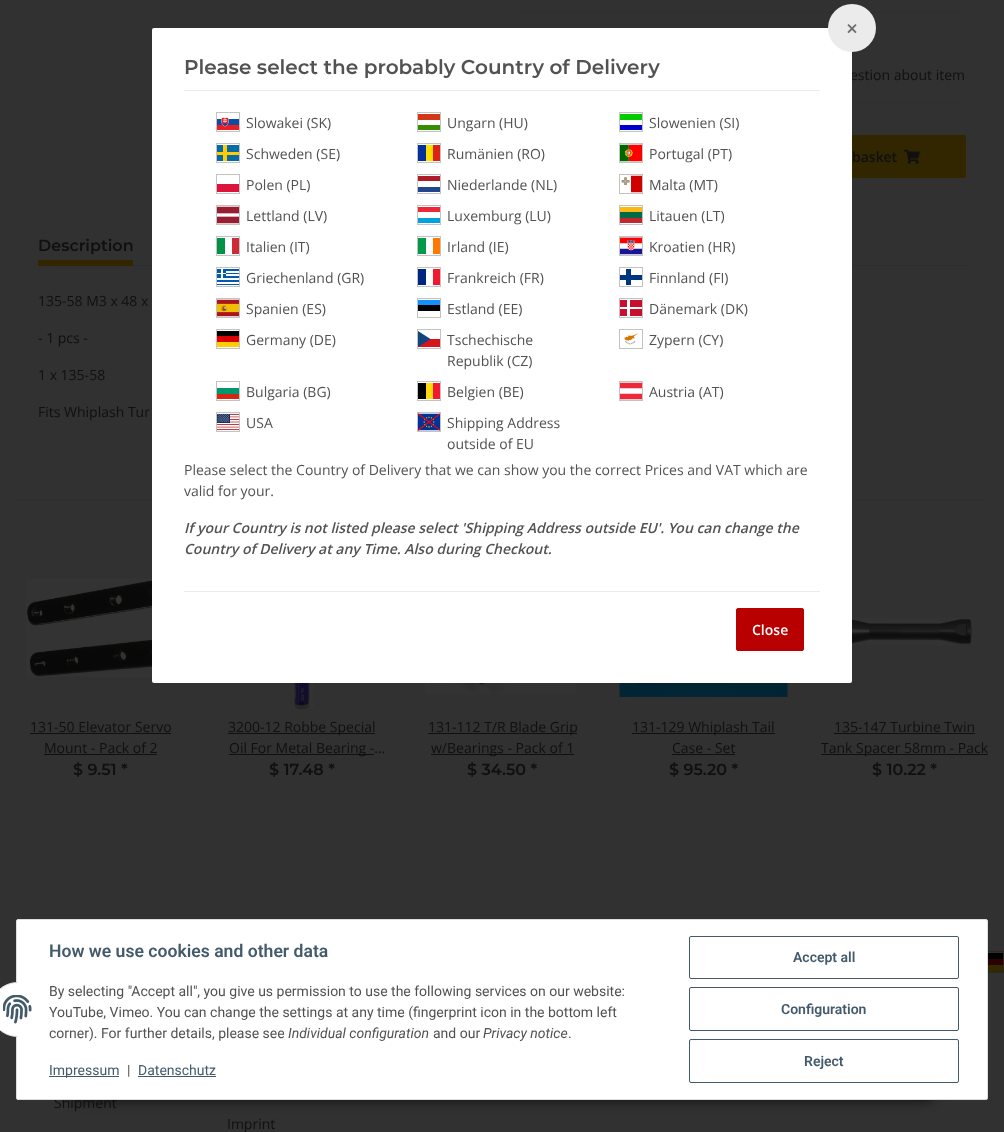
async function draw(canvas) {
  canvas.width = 1004
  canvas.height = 1132
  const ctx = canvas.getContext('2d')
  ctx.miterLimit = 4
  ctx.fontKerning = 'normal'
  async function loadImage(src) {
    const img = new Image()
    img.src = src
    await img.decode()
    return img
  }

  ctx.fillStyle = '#313132'
  ctx.fillRect(0, 0, 1004, 1132)
  ctx.font = '14px Open Sans'
  ctx.fillStyle = '#101010'
  ctx.fillText('estion about item', 850, 80)
  ctx.fillStyle = '#322600'
  ctx.beginPath()
  ctx.roundRect(758.5, 135.5, 207, 42, 1.5)
  ctx.fill()
  ctx.strokeStyle = '#322600'
  ctx.stroke()
  ctx.fillStyle = '#2c2d2e'
  ctx.fillRect(133, 265, 833, 1)
  ctx.fillStyle = '#fff'
  ctx.beginPath()
  ctx.roundRect(152, 28, 700, 655, 2)
  ctx.fill()
  ctx.fillStyle = '#ebebeb'
  ctx.fillRect(184, 90, 636, 1)
  ctx.fillStyle = '#2f2f2f'
  ctx.fillRect(518, 12, 448, 1)
  ctx.fillStyle = '#ebebeb'
  ctx.beginPath()
  ctx.arc(852, 28, 24, 0, 2 * Math.PI)
  ctx.fill()
  ctx.font = '600 21px Open Sans'
  ctx.fillStyle = '#707070'
  ctx.fillText('×', 846, 36)
  ctx.font = '600 20px Montserrat'
  ctx.fillStyle = '#525252'
  ctx.fillText('Please select the probably Country of Delivery', 184, 74)
  ctx.strokeStyle = '#c3c3c3'
  ctx.strokeRect(216.5, 112.5, 23, 19)
  ctx.drawImage(await loadImage('image0.png'), 217, 117, 22, 13)
  ctx.font = '14px Open Sans'
  ctx.fillText('Slowakei (SK)', 246, 128)
  ctx.strokeRect(417.5, 112.5, 23, 19)
  ctx.fillStyle = '#388d00'
  ctx.fillRect(418, 125, 22, 5)
  ctx.fillStyle = '#d43516'
  ctx.fillRect(418, 114, 22, 6)
  ctx.fillStyle = '#525252'
  ctx.fillText('Ungarn (HU)', 447, 128)
  ctx.strokeRect(619.5, 112.5, 23, 19)
  ctx.fillStyle = '#0000cd'
  ctx.fillRect(620, 125, 22, 5)
  ctx.fillStyle = '#00cd00'
  ctx.fillRect(620, 114, 22, 6)
  ctx.fillStyle = '#525252'
  ctx.fillText('Slowenien (SI)', 649, 128)
  ctx.strokeRect(216.5, 143.5, 23, 19)
  ctx.fillStyle = '#066aa7'
  ctx.fillRect(217, 145, 22, 16)
  ctx.fillStyle = '#fecc00'
  ctx.fillRect(217, 152, 22, 3)
  ctx.fillRect(223, 145, 4, 16)
  ctx.fillStyle = '#525252'
  ctx.fillText('Schweden (SE)', 246, 159)
  ctx.strokeRect(417.5, 143.5, 23, 19)
  ctx.fillStyle = '#00319c'
  ctx.fillRect(418, 145, 8, 16)
  ctx.fillStyle = '#ffde00'
  ctx.fillRect(426, 145, 7, 16)
  ctx.fillStyle = '#de2110'
  ctx.fillRect(433, 145, 7, 16)
  ctx.fillStyle = '#525252'
  ctx.fillText('Rumänien (RO)', 447, 159)
  ctx.strokeRect(619.5, 143.5, 23, 19)
  ctx.drawImage(await loadImage('image1.png'), 620, 144, 22, 18)
  ctx.fillText('Portugal (PT)', 649, 159)
  ctx.strokeRect(216.5, 174.5, 23, 19)
  ctx.fillStyle = '#dc143c'
  ctx.fillRect(217, 184, 22, 8)
  ctx.fillStyle = '#525252'
  ctx.fillText('Polen (PL)', 246, 190)
  ctx.strokeRect(417.5, 174.5, 23, 19)
  ctx.fillStyle = '#21468b'
  ctx.fillRect(418, 187, 22, 5)
  ctx.fillStyle = '#ae1c28'
  ctx.fillRect(418, 176, 22, 5)
  ctx.fillStyle = '#525252'
  ctx.fillText('Niederlande (NL)', 447, 190)
  ctx.strokeRect(619.5, 174.5, 23, 19)
  ctx.drawImage(await loadImage('image2.png'), 621, 175, 21, 18)
  ctx.fillText('Malta (MT)', 649, 190)
  ctx.strokeRect(216.5, 205.5, 23, 19)
  ctx.drawImage(await loadImage('image3.png'), 217, 206, 22, 18)
  ctx.fillText('Lettland (LV)', 246, 221)
  ctx.strokeRect(417.5, 205.5, 23, 19)
  ctx.fillStyle = '#00a1de'
  ctx.fillRect(418, 218, 22, 5)
  ctx.fillStyle = '#ed2939'
  ctx.fillRect(418, 207, 22, 5)
  ctx.fillStyle = '#525252'
  ctx.fillText('Luxemburg (LU)', 447, 221)
  ctx.strokeRect(619.5, 205.5, 23, 19)
  ctx.fillStyle = '#006a44'
  ctx.fillRect(620, 212, 22, 6)
  ctx.fillStyle = '#c1272d'
  ctx.fillRect(620, 218, 22, 5)
  ctx.fillStyle = '#fdb913'
  ctx.fillRect(620, 207, 22, 5)
  ctx.fillStyle = '#525252'
  ctx.fillText('Litauen (LT)', 649, 221)
  ctx.strokeRect(216.5, 236.5, 23, 19)
  ctx.fillStyle = '#009246'
  ctx.fillRect(217, 238, 8, 16)
  ctx.fillStyle = '#ce2b37'
  ctx.fillRect(232, 238, 7, 16)
  ctx.fillStyle = '#525252'
  ctx.fillText('Italien (IT)', 246, 252)
  ctx.strokeRect(417.5, 236.5, 23, 19)
  ctx.fillStyle = '#009a49'
  ctx.fillRect(418, 238, 8, 16)
  ctx.fillStyle = '#ff7900'
  ctx.fillRect(433, 238, 7, 16)
  ctx.fillStyle = '#525252'
  ctx.fillText('Irland (IE)', 447, 252)
  ctx.strokeRect(619.5, 236.5, 23, 19)
  ctx.drawImage(await loadImage('image4.png'), 620, 237, 22, 18)
  ctx.fillText('Kroatien (HR)', 649, 252)
  ctx.strokeRect(216.5, 267.5, 23, 19)
  ctx.drawImage(await loadImage('image5.png'), 217, 269, 22, 16)
  ctx.fillText('Griechenland (GR)', 246, 283)
  ctx.strokeRect(417.5, 267.5, 23, 19)
  ctx.fillStyle = '#00267f'
  ctx.fillRect(418, 269, 8, 16)
  ctx.fillStyle = '#f31830'
  ctx.fillRect(433, 269, 7, 16)
  ctx.fillStyle = '#525252'
  ctx.fillText('Frankreich (FR)', 447, 283)
  ctx.strokeRect(619.5, 267.5, 23, 19)
  ctx.fillStyle = '#003580'
  ctx.fillRect(620, 275, 22, 5)
  ctx.fillRect(626, 269, 5, 16)
  ctx.fillStyle = '#525252'
  ctx.fillText('Finnland (FI)', 649, 283)
  ctx.strokeRect(216.5, 298.5, 23, 19)
  ctx.drawImage(await loadImage('image6.png'), 217, 299, 22, 18)
  ctx.fillText('Spanien (ES)', 246, 314)
  ctx.strokeRect(417.5, 298.5, 23, 19)
  ctx.fillStyle = '#000'
  ctx.fillRect(418, 305, 22, 6)
  ctx.fillStyle = '#1291ff'
  ctx.fillRect(418, 300, 22, 5)
  ctx.fillStyle = '#525252'
  ctx.fillText('Estland (EE)', 447, 314)
  ctx.strokeRect(619.5, 298.5, 23, 19)
  ctx.fillStyle = '#c8102e'
  ctx.fillRect(620, 300, 22, 16)
  ctx.fillStyle = '#fff'
  ctx.fillRect(627, 300, 3, 16)
  ctx.fillRect(620, 307, 22, 2)
  ctx.fillStyle = '#525252'
  ctx.fillText('Dänemark (DK)', 649, 314)
  ctx.strokeRect(216.5, 329.5, 23, 19)
  ctx.fillStyle = '#ffce00'
  ctx.fillRect(217, 342, 22, 5)
  ctx.fillStyle = '#000'
  ctx.fillRect(217, 331, 22, 5)
  ctx.fillStyle = '#d00'
  ctx.fillRect(217, 336, 22, 6)
  ctx.fillStyle = '#525252'
  ctx.fillText('Germany (DE)', 246, 345)
  ctx.strokeRect(417.5, 329.5, 23, 19)
  ctx.fillStyle = '#d7141a'
  ctx.fillRect(418, 339, 22, 8)
  ctx.fillStyle = '#11457e'
  ctx.beginPath()
  ctx.moveTo(430.5, 339)
  ctx.lineTo(418, 331)
  ctx.lineTo(418, 347)
  ctx.closePath()
  ctx.fill()
  ctx.fillStyle = '#525252'
  ctx.fillText('Tschechische', 447, 345)
  ctx.fillText('Republik (CZ)', 447, 366)
  ctx.strokeRect(619.5, 329.5, 23, 19)
  ctx.drawImage(await loadImage('image7.png'), 624, 333, 14, 12)
  ctx.fillText('Zypern (CY)', 649, 345)
  ctx.strokeRect(216.5, 381.5, 23, 19)
  ctx.fillStyle = '#d62612'
  ctx.fillRect(217, 394, 22, 5)
  ctx.fillStyle = '#00966e'
  ctx.fillRect(217, 388, 22, 6)
  ctx.fillStyle = '#525252'
  ctx.fillText('Bulgaria (BG)', 246, 397)
  ctx.strokeRect(417.5, 381.5, 23, 19)
  ctx.fillStyle = '#000'
  ctx.fillRect(418, 383, 8, 16)
  ctx.fillStyle = '#ffd90c'
  ctx.fillRect(426, 383, 7, 16)
  ctx.fillStyle = '#f31830'
  ctx.fillRect(433, 383, 7, 16)
  ctx.fillStyle = '#525252'
  ctx.fillText('Belgien (BE)', 447, 397)
  ctx.strokeRect(619.5, 381.5, 23, 19)
  ctx.drawImage(await loadImage('image8.png'), 620, 382, 22, 18)
  ctx.fillText('Austria (AT)', 649, 397)
  ctx.strokeRect(216.5, 412.5, 23, 19)
  ctx.drawImage(await loadImage('image9.png'), 217, 413, 22, 18)
  ctx.fillText('USA', 246, 428)
  ctx.strokeRect(417.5, 412.5, 23, 19)
  ctx.drawImage(await loadImage('image10.png'), 418, 413, 22, 18)
  ctx.fillText('Shipping Address', 447, 428)
  ctx.fillText('outside of EU', 447, 449)
  ctx.fillText('Please select the Country of Delivery that we can show you the correct Prices and VAT which are', 184, 475)
  ctx.fillText('valid for your.', 184, 496)
  ctx.font = 'italic 600 14px Open Sans'
  ctx.fillText('If your Country is not listed please select \'Shipping Address outside EU\'. You can change the', 184, 533)
  ctx.fillText('Country of Delivery at any Time. Also during Checkout.', 184, 554)
  ctx.fillStyle = '#ebebeb'
  ctx.fillRect(184, 591, 636, 1)
  ctx.fillStyle = '#b90000'
  ctx.beginPath()
  ctx.roundRect(736.5, 608.5, 67, 42, 1.5)
  ctx.fill()
  ctx.strokeStyle = '#b90000'
  ctx.stroke()
  ctx.font = '600 14px Open Sans'
  ctx.fillStyle = '#fff'
  ctx.fillText('Close', 752, 635)
  ctx.fillStyle = '#2f2f2f'
  ctx.fillRect(852, 102, 114, 1)
  ctx.fillStyle = '#101010'
  ctx.fillText('basket', 852, 162)
  ctx.drawImage(await loadImage('image11.png'), 904, 149, 16, 15)
  ctx.font = '600 16px Montserrat'
  ctx.fillText('Description', 38, 251)
  ctx.fillStyle = '#322600'
  ctx.fillRect(38, 260, 95, 6)
  ctx.font = '14px Open Sans'
  ctx.fillStyle = '#101010'
  ctx.fillText('135-58 M3 x 48 x', 38, 306)
  ctx.fillText('- 1 pcs -', 38, 343)
  ctx.fillText('1 x 135-58', 38, 380)
  ctx.fillText('Fits Whiplash Tur', 38, 417)
  ctx.fillStyle = '#2e2e2e'
  ctx.fillRect(16, 500, 136, 1)
  ctx.fillRect(852, 500, 136, 1)
  ctx.drawImage(await loadImage('image12.png'), 26, 579, 126, 98)
  ctx.fillStyle = '#101010'
  ctx.fillText('131-50 Elevator Servo', 30, 732)
  ctx.fillRect(30, 733, 141, 1)
  ctx.fillText('Mount - Pack of 2', 44, 753)
  ctx.fillRect(44, 754, 113, 1)
  ctx.font = '600 16px Montserrat'
  ctx.fillText('$ 9.51 *', 73, 775)
  ctx.drawImage(await loadImage('image13.png'), 293, 683, 21, 26)
  ctx.fillRect(228, 733, 147, 1)
  ctx.font = '14px Open Sans'
  ctx.fillText('3200-12 Robbe Special', 228, 732)
  ctx.fillRect(229, 754, 145, 1)
  ctx.fillText('Oil For Metal Bearing -…', 229, 753)
  ctx.font = '600 16px Montserrat'
  ctx.fillText('$ 17.48 *', 269, 775)
  ctx.drawImage(await loadImage('image14.png'), 425, 683, 151, 11)
  ctx.fillRect(428, 733, 149, 1)
  ctx.font = '14px Open Sans'
  ctx.fillText('131-112 T/R Blade Grip', 428, 732)
  ctx.fillRect(431, 754, 143, 1)
  ctx.fillText('w/Bearings - Pack of 1', 431, 753)
  ctx.font = '600 16px Montserrat'
  ctx.fillText('$ 34.50 *', 467, 775)
  ctx.drawImage(await loadImage('image15.png'), 619, 683, 169, 14)
  ctx.fillRect(632, 733, 143, 1)
  ctx.font = '14px Open Sans'
  ctx.fillText('131-129 Whiplash Tail', 632, 732)
  ctx.fillText('Case - Set', 672, 753)
  ctx.fillRect(672, 754, 63, 1)
  ctx.font = '600 16px Montserrat'
  ctx.fillText('$ 95.20 *', 669, 775)
  ctx.drawImage(await loadImage('image16.png'), 852, 618, 120, 27)
  ctx.font = '14px Open Sans'
  ctx.fillText('135-147 Turbine Twin', 834, 732)
  ctx.fillRect(834, 733, 141, 1)
  ctx.fillRect(821, 754, 167, 1)
  ctx.fillText('Tank Spacer 58mm - Pack', 821, 753)
  ctx.font = '600 16px Montserrat'
  ctx.fillText('$ 10.22 *', 872, 775)
  ctx.fillStyle = '#00000073'
  ctx.filter = 'blur(5px)'
  ctx.beginPath()
  ctx.roundRect(66, 1071, 873, 32, 16)
  ctx.fill()
  ctx.filter = 'none'
  ctx.strokeStyle = '#272727'
  ctx.strokeRect(977.5, 951.5, 26, 21)
  ctx.font = '14px Open Sans'
  ctx.fillStyle = '#101010'
  ctx.fillText('Shipment', 54, 1108)
  ctx.fillStyle = '#fff'
  ctx.beginPath()
  ctx.roundRect(16.5, 919.5, 971, 180, 1.5)
  ctx.fill()
  ctx.strokeStyle = '#ddd'
  ctx.stroke()
  ctx.beginPath()
  ctx.arc(17.5, 1009.5, 27, 0, 2 * Math.PI)
  ctx.fill()
  ctx.stroke()
  ctx.fillRect(18, 982, 27, 55)
  ctx.drawImage(await loadImage('image17.png'), 3, 995, 29, 29)
  ctx.font = '600 17.6px Roboto'
  ctx.fillStyle = '#435a6b'
  ctx.fillText('How we use cookies and other data', 49, 957)
  ctx.font = '14px Roboto'
  ctx.fillStyle = '#525252'
  ctx.fillText('By selecting "Accept all", you give us permission to use the following services on our website:', 49, 996)
  ctx.fillText('YouTube, Vimeo. You can change the settings at any time (fingerprint icon in the bottom left', 49, 1017)
  ctx.fillText('corner). For further details, please see', 49, 1038)
  ctx.font = 'italic 14px Roboto'
  ctx.fillText('Individual configuration', 288, 1038)
  ctx.font = '14px Roboto'
  ctx.fillText('and our', 433, 1038)
  ctx.font = 'italic 14px Roboto'
  ctx.fillText('Privacy notice', 483, 1038)
  ctx.font = '14px Roboto'
  ctx.fillText('.', 568, 1038)
  ctx.fillStyle = '#435a6b'
  ctx.fillRect(49, 1076, 70, 1)
  ctx.fillText('Impressum', 49, 1075)
  ctx.fillStyle = '#525252'
  ctx.fillText('|', 127, 1075)
  ctx.fillStyle = '#435a6b'
  ctx.fillText('Datenschutz', 138, 1075)
  ctx.fillRect(138, 1076, 78, 1)
  ctx.beginPath()
  ctx.roundRect(689.5, 936.5, 269, 42, 1.5)
  ctx.strokeStyle = '#435a6b'
  ctx.stroke()
  ctx.font = '600 14px Roboto'
  ctx.fillText('Accept all', 793, 962)
  ctx.beginPath()
  ctx.roundRect(689.5, 987.5, 269, 43, 1.5)
  ctx.stroke()
  ctx.fillText('Configuration', 781, 1014)
  ctx.beginPath()
  ctx.roundRect(689.5, 1039.5, 269, 43, 1.5)
  ctx.stroke()
  ctx.fillText('Reject', 804, 1066)
  ctx.fillStyle = '#000'
  ctx.fillRect(988, 953, 15, 6)
  ctx.fillStyle = '#2c0000'
  ctx.fillRect(988, 959, 15, 6)
  ctx.fillStyle = '#332900'
  ctx.fillRect(988, 965, 15, 7)
  ctx.font = '14px Open Sans'
  ctx.fillStyle = '#101010'
  ctx.fillText('Imprint', 227, 1129)
}

draw(document.querySelector('canvas'))
